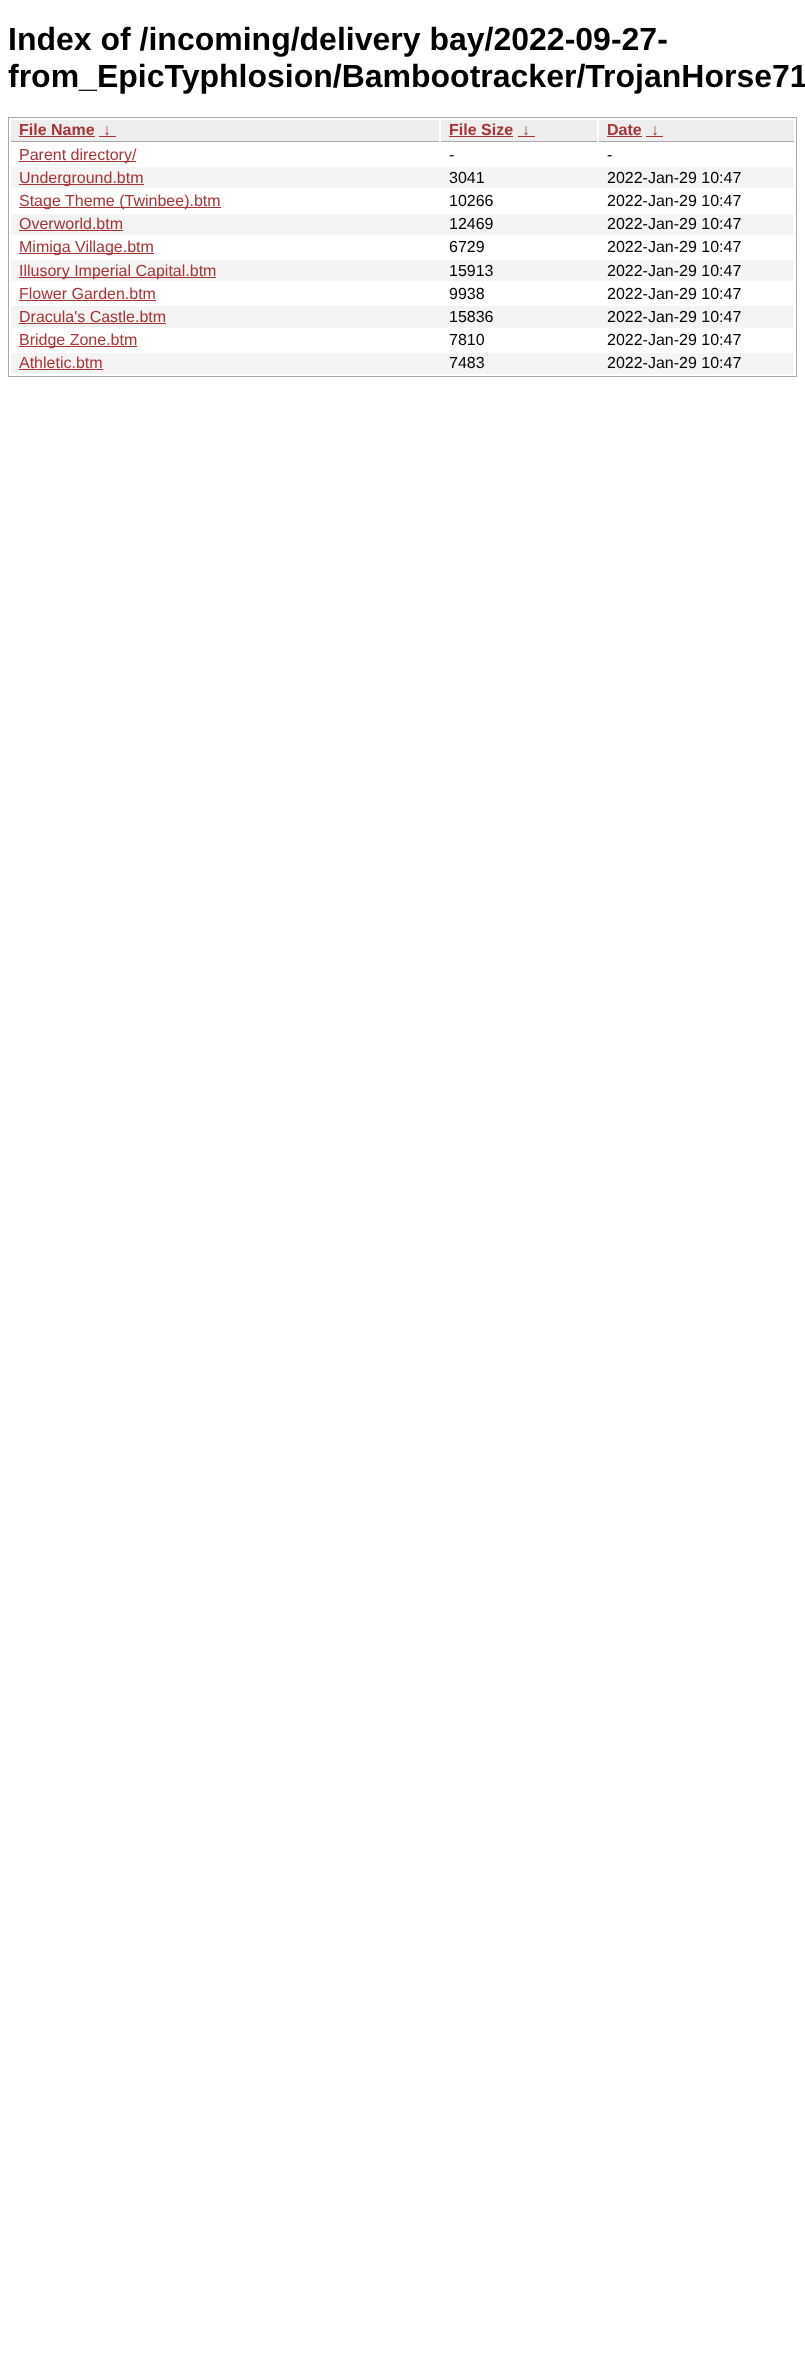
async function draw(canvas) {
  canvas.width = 805
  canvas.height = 2368
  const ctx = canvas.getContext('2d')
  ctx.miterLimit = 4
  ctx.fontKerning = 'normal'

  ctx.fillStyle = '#fff'
  ctx.fillRect(0, 0, 805, 2368)
  ctx.font = 'bold 32px Liberation Sans'
  ctx.fillStyle = '#000'
  ctx.fillText('Index of /incoming/delivery bay/2022-09-27-', 8, 50)
  ctx.fillText('from_EpicTyphlosion/Bambootracker/TrojanHorse71', 8, 87)
  ctx.strokeStyle = '#aaa'
  ctx.strokeRect(8.5, 117.5, 788, 259)
  ctx.fillStyle = '#eee'
  ctx.fillRect(11, 120, 428, 21)
  ctx.fillStyle = '#aaa'
  ctx.fillRect(11, 141, 428, 1)
  ctx.font = 'bold 16px Liberation Sans'
  ctx.fillStyle = '#a33'
  ctx.fillText('File Name', 19, 135)
  ctx.fillRect(19, 136, 76, 1)
  ctx.fillText('↓', 103, 135)
  ctx.fillRect(99, 136, 17, 1)
  ctx.fillStyle = '#eee'
  ctx.fillRect(441, 120, 156, 21)
  ctx.fillStyle = '#aaa'
  ctx.fillRect(441, 141, 156, 1)
  ctx.fillStyle = '#a33'
  ctx.fillText('File Size', 449, 135)
  ctx.fillRect(449, 136, 64, 1)
  ctx.fillText('↓', 522, 135)
  ctx.fillRect(518, 136, 17, 1)
  ctx.fillStyle = '#eee'
  ctx.fillRect(599, 120, 195, 21)
  ctx.fillStyle = '#aaa'
  ctx.fillRect(599, 141, 195, 1)
  ctx.fillStyle = '#a33'
  ctx.fillText('Date', 607, 135)
  ctx.fillRect(607, 136, 35, 1)
  ctx.fillText('↓', 651, 135)
  ctx.fillRect(646, 136, 17, 1)
  ctx.fillRect(19, 161, 117, 1)
  ctx.font = '16px Liberation Sans'
  ctx.fillText('Parent directory/', 19, 160)
  ctx.fillStyle = '#000'
  ctx.fillText('-', 449, 160)
  ctx.fillText('-', 607, 160)
  ctx.fillStyle = '#f4f4f4'
  ctx.fillRect(11, 167, 783, 21)
  ctx.fillStyle = '#a33'
  ctx.fillRect(19, 184, 125, 1)
  ctx.fillText('Underground.btm', 19, 183)
  ctx.fillStyle = '#000'
  ctx.fillText('3041', 449, 183)
  ctx.fillText('2022-Jan-29 10:47', 607, 183)
  ctx.fillStyle = '#a33'
  ctx.fillRect(19, 207, 202, 1)
  ctx.fillText('Stage Theme (Twinbee).btm', 19, 206)
  ctx.fillStyle = '#000'
  ctx.fillText('10266', 449, 206)
  ctx.fillText('2022-Jan-29 10:47', 607, 206)
  ctx.fillStyle = '#f4f4f4'
  ctx.fillRect(11, 214, 783, 21)
  ctx.fillStyle = '#a33'
  ctx.fillText('Overworld.btm', 19, 229)
  ctx.fillRect(19, 230, 104, 1)
  ctx.fillStyle = '#000'
  ctx.fillText('12469', 449, 229)
  ctx.fillText('2022-Jan-29 10:47', 607, 229)
  ctx.fillStyle = '#a33'
  ctx.fillRect(19, 253, 135, 1)
  ctx.fillText('Mimiga Village.btm', 19, 252)
  ctx.fillStyle = '#000'
  ctx.fillText('6729', 449, 252)
  ctx.fillText('2022-Jan-29 10:47', 607, 252)
  ctx.fillStyle = '#f4f4f4'
  ctx.fillRect(11, 260, 783, 21)
  ctx.fillStyle = '#a33'
  ctx.fillRect(19, 277, 197, 1)
  ctx.fillText('Illusory Imperial Capital.btm', 19, 276)
  ctx.fillStyle = '#000'
  ctx.fillText('15913', 449, 276)
  ctx.fillText('2022-Jan-29 10:47', 607, 276)
  ctx.fillStyle = '#a33'
  ctx.fillText('Flower Garden.btm', 19, 299)
  ctx.fillRect(19, 300, 137, 1)
  ctx.fillStyle = '#000'
  ctx.fillText('9938', 449, 299)
  ctx.fillText('2022-Jan-29 10:47', 607, 299)
  ctx.fillStyle = '#f4f4f4'
  ctx.fillRect(11, 306, 783, 22)
  ctx.fillStyle = '#a33'
  ctx.fillText('Dracula\'s Castle.btm', 19, 322)
  ctx.fillRect(19, 323, 147, 1)
  ctx.fillStyle = '#000'
  ctx.fillText('15836', 449, 322)
  ctx.fillText('2022-Jan-29 10:47', 607, 322)
  ctx.fillStyle = '#a33'
  ctx.fillRect(19, 346, 118, 1)
  ctx.fillText('Bridge Zone.btm', 19, 345)
  ctx.fillStyle = '#000'
  ctx.fillText('7810', 449, 345)
  ctx.fillText('2022-Jan-29 10:47', 607, 345)
  ctx.fillStyle = '#f4f4f4'
  ctx.fillRect(11, 353, 783, 21)
  ctx.fillStyle = '#a33'
  ctx.fillText('Athletic.btm', 19, 368)
  ctx.fillRect(19, 369, 84, 1)
  ctx.fillStyle = '#000'
  ctx.fillText('7483', 449, 368)
  ctx.fillText('2022-Jan-29 10:47', 607, 368)
}

draw(document.querySelector('canvas'))
